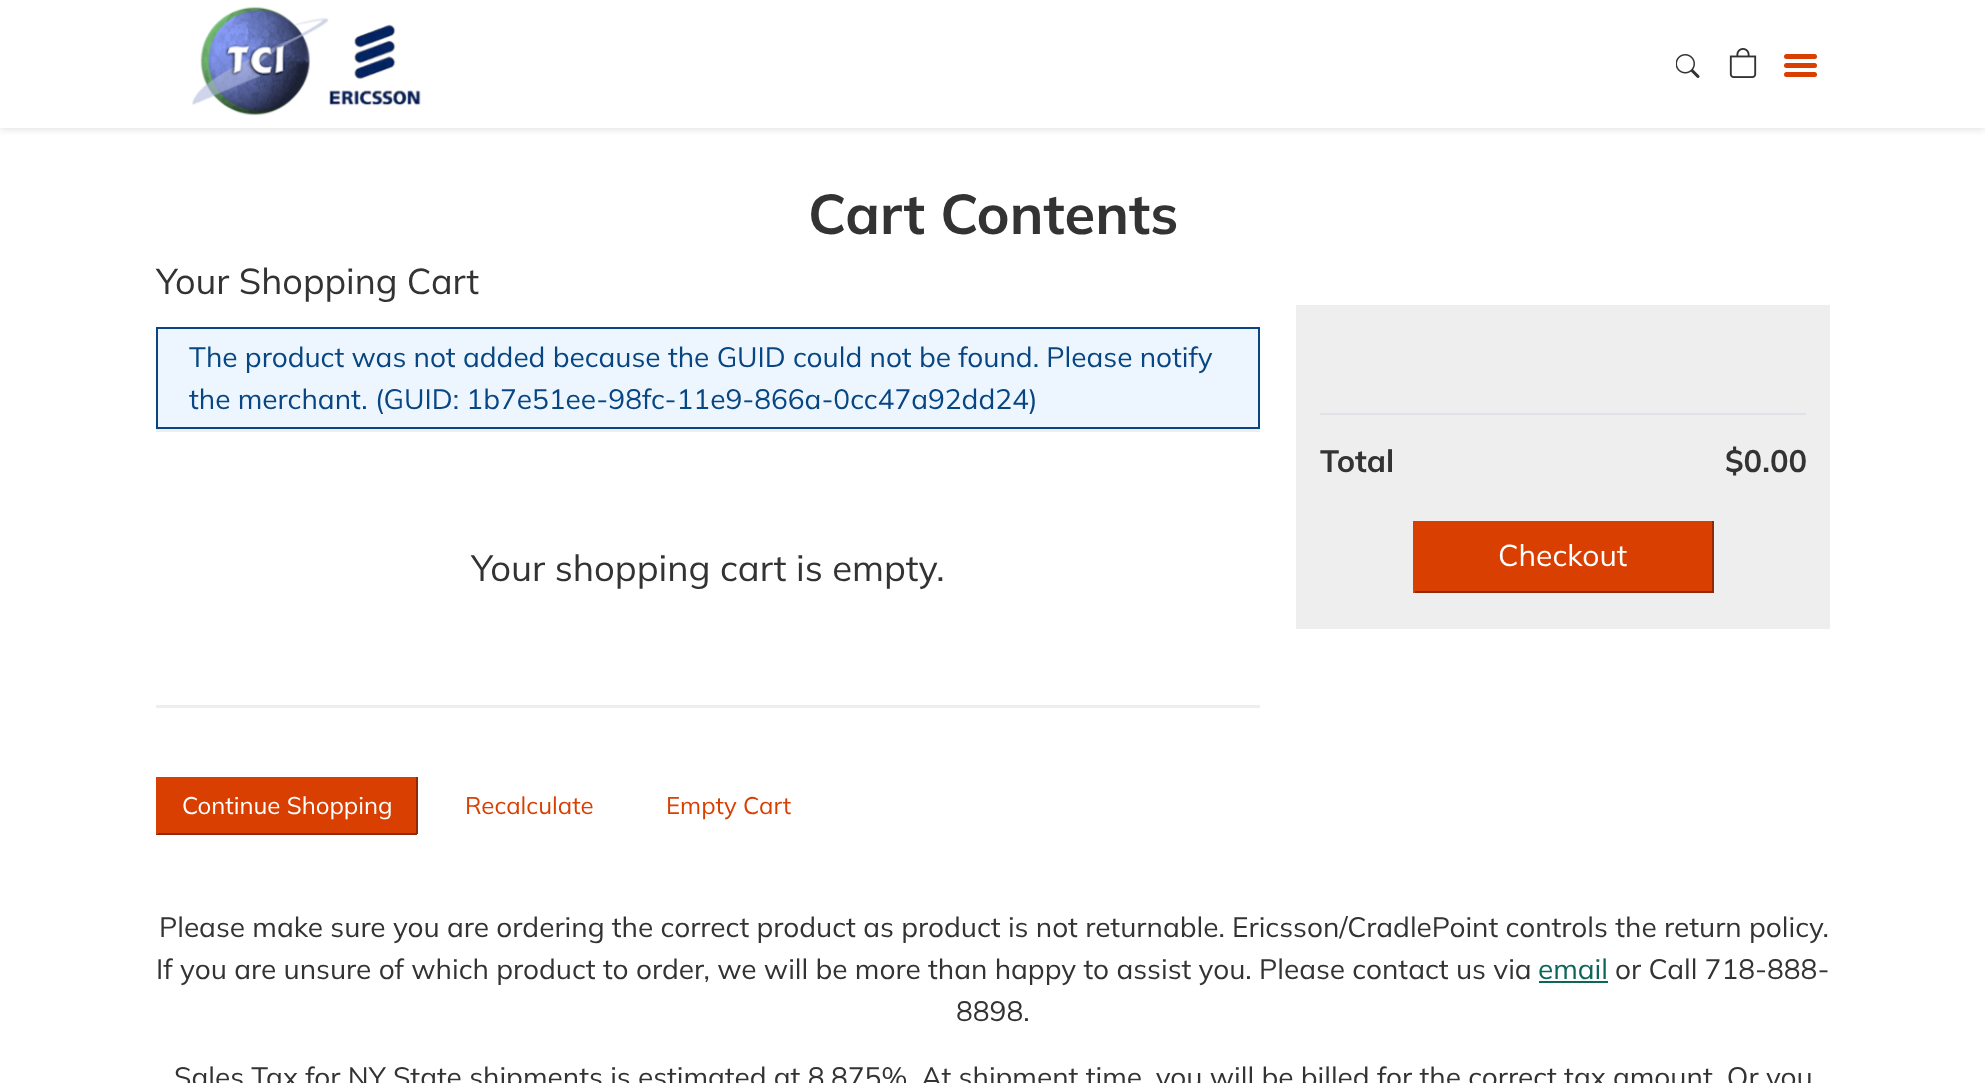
async function draw(canvas) {
  canvas.width = 1985
  canvas.height = 1083
  const ctx = canvas.getContext('2d')
  ctx.miterLimit = 4
  ctx.fontKerning = 'normal'
  async function loadImage(src) {
    const img = new Image()
    img.src = src
    await img.decode()
    return img
  }

  ctx.fillStyle = '#fff'
  ctx.fillRect(0, 0, 1985, 1083)
  ctx.fillStyle = '#00000029'
  ctx.filter = 'blur(4.5px)'
  ctx.beginPath()
  ctx.rect(0, 0, 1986, 128)
  ctx.fill()
  ctx.filter = 'none'
  ctx.fillStyle = '#fff'
  ctx.fillRect(0, 0, 1985, 128)
  ctx.drawImage(await loadImage('image0.png'), 192, 6, 229, 110)
  ctx.drawImage(await loadImage('image1.png'), 1676, 54, 24, 24)
  ctx.drawImage(await loadImage('image2.png'), 1729, 48, 28, 30)
  ctx.fillStyle = '#da3f02'
  ctx.beginPath()
  ctx.roundRect(1784, 54, 33, 5, 2.5)
  ctx.fill()
  ctx.beginPath()
  ctx.roundRect(1784, 63, 33, 5, 2.5)
  ctx.fill()
  ctx.beginPath()
  ctx.roundRect(1784, 72, 33, 5, 2.5)
  ctx.fill()
  ctx.font = 'bold 56px Mulish'
  ctx.fillStyle = '#333'
  ctx.fillText('Cart Contents', 808, 234)
  ctx.font = '36px Mulish'
  ctx.fillText('Your Shopping Cart', 156, 294)
  ctx.fillStyle = '#edf6ff'
  ctx.beginPath()
  ctx.rect(157, 328, 1102, 100)
  ctx.fill()
  ctx.strokeStyle = '#074682'
  ctx.lineWidth = 2
  ctx.stroke()
  ctx.font = '28px Mulish'
  ctx.fillStyle = '#074682'
  ctx.fillText('The product was not added because the GUID could not be found. Please notify', 189, 367)
  ctx.fillText('the merchant. (GUID: 1b7e51ee-98fc-11e9-866a-0cc47a92dd24)', 189, 409)
  ctx.fillStyle = '#eee'
  ctx.fillRect(156, 429, 1104, 3)
  ctx.fillRect(156, 705, 1104, 3)
  ctx.font = '36.4px Mulish'
  ctx.fillStyle = '#333'
  ctx.fillText('Your shopping cart is empty.', 471, 581)
  ctx.fillStyle = '#eee'
  ctx.fillRect(1296, 305, 534, 324)
  ctx.fillStyle = '#dee2e6'
  ctx.fillRect(1320, 413, 486, 2)
  ctx.font = 'bold 31px Mulish'
  ctx.fillStyle = '#333'
  ctx.fillText('Total', 1320, 472)
  ctx.fillText('$0.00', 1725, 472)
  ctx.fillStyle = '#da3f02'
  ctx.fillRect(1415, 521, 297, 70)
  ctx.fillStyle = '#912a01'
  ctx.fillRect(1712, 521, 2, 72)
  ctx.fillRect(1413, 591, 300, 2)
  ctx.fillStyle = '#da3f02'
  ctx.fillRect(1413, 521, 2, 72)
  ctx.font = '30px Mulish'
  ctx.fillStyle = '#fff'
  ctx.fillText('Checkout', 1498, 566)
  ctx.fillStyle = '#da3f02'
  ctx.fillRect(158, 777, 258, 56)
  ctx.fillStyle = '#912a01'
  ctx.fillRect(416, 777, 2, 57)
  ctx.fillRect(156, 833, 261, 2)
  ctx.fillStyle = '#da3f02'
  ctx.fillRect(156, 777, 2, 57)
  ctx.font = '24px Mulish'
  ctx.fillStyle = '#fff'
  ctx.fillText('Continue Shopping', 182, 814)
  ctx.fillStyle = '#da3f02'
  ctx.fillText('Recalculate', 465, 814)
  ctx.fillText('Empty Cart', 666, 814)
  ctx.font = '28px Mulish'
  ctx.fillStyle = '#333'
  ctx.fillText('Please make sure you are ordering the correct product as product is not returnable. Ericsson/CradlePoint controls the return policy.', 159, 937)
  ctx.fillText('If you are unsure of which product to order, we will be more than happy to assist you. Please contact us via', 156, 979)
  ctx.fillStyle = '#0c6659'
  ctx.fillText('email', 1538, 979)
  ctx.fillRect(1539, 981, 69, 2)
  ctx.fillStyle = '#333'
  ctx.fillText('or Call 718-888-', 1615, 979)
  ctx.fillText('8898.', 956, 1021)
  ctx.fillText('Sales Tax for NY State shipments is estimated at 8.875%. At shipment time, you will be billed for the correct tax amount. Or you', 174, 1087)
}

draw(document.querySelector('canvas'))
